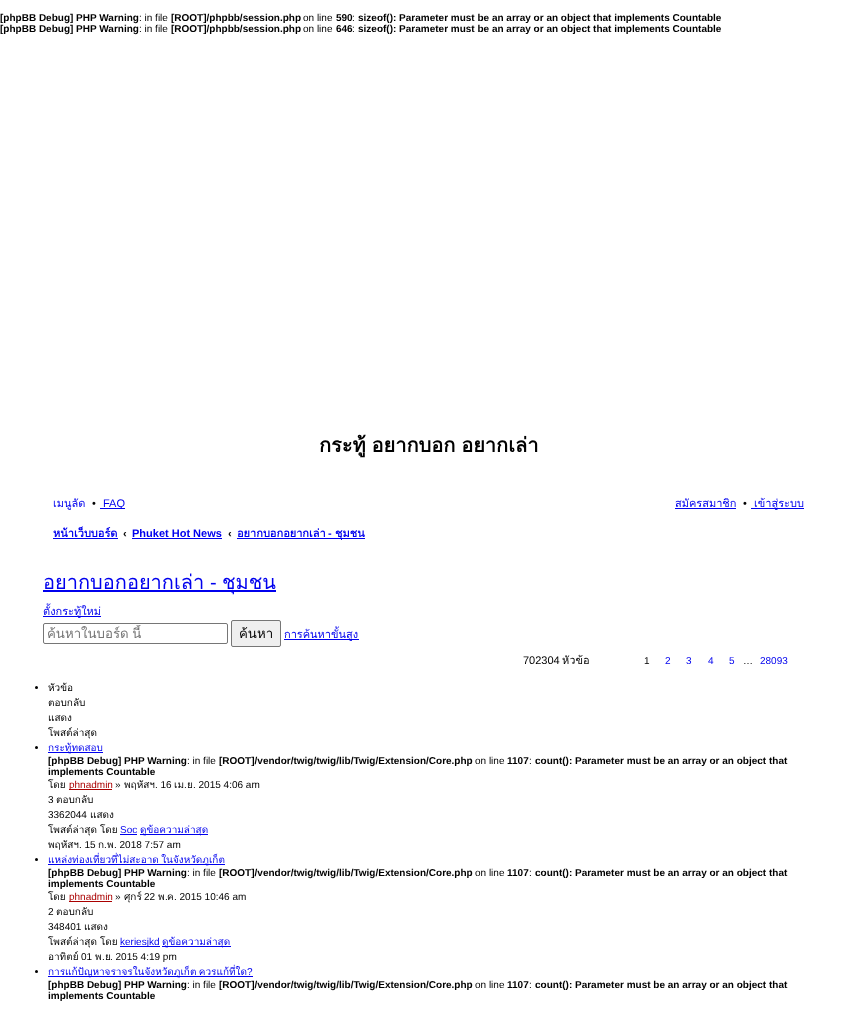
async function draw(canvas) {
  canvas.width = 857
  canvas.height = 1009
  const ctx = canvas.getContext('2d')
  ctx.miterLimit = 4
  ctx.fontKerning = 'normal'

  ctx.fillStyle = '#fff'
  ctx.fillRect(0, 0, 857, 1009)
  ctx.font = 'bold 10px Liberation Sans'
  ctx.fillStyle = '#000'
  ctx.fillText('[phpBB Debug] PHP Warning', 0, 21)
  ctx.font = '10px Liberation Sans'
  ctx.fillText(': in file', 139, 21)
  ctx.font = 'bold 10px Liberation Sans'
  ctx.fillText('[ROOT]/phpbb/session.php', 171, 21)
  ctx.font = '10px Liberation Sans'
  ctx.fillText('on line', 303, 21)
  ctx.font = 'bold 10px Liberation Sans'
  ctx.fillText('590', 336, 21)
  ctx.font = '10px Liberation Sans'
  ctx.fillText(':', 352, 21)
  ctx.font = 'bold 10px Liberation Sans'
  ctx.fillText('sizeof(): Parameter must be an array or an object that implements Countable', 358, 21)
  ctx.fillText('[phpBB Debug] PHP Warning', 0, 32)
  ctx.font = '10px Liberation Sans'
  ctx.fillText(': in file', 139, 32)
  ctx.font = 'bold 10px Liberation Sans'
  ctx.fillText('[ROOT]/phpbb/session.php', 171, 32)
  ctx.font = '10px Liberation Sans'
  ctx.fillText('on line', 303, 32)
  ctx.font = 'bold 10px Liberation Sans'
  ctx.fillText('646', 336, 32)
  ctx.font = '10px Liberation Sans'
  ctx.fillText(':', 352, 32)
  ctx.font = 'bold 10px Liberation Sans'
  ctx.fillText('sizeof(): Parameter must be an array or an object that implements Countable', 358, 32)
  ctx.wordSpacing = '-1px'
  ctx.font = 'bold 20px Loma'
  ctx.fillText('กระทู้ อยากบอก อยากเล่า', 319, 452)
  ctx.wordSpacing = '0px'
  ctx.font = '11px Loma'
  ctx.fillStyle = '#00e'
  ctx.fillText('เมนูลัด', 53, 507)
  ctx.font = '11px Liberation Sans'
  ctx.fillStyle = '#000'
  ctx.fillText('•', 92, 507)
  ctx.fillStyle = '#00e'
  ctx.fillRect(100, 508, 25, 1)
  ctx.fillText('FAQ', 103, 507)
  ctx.font = '11px Loma'
  ctx.fillText('สมัครสมาชิก', 675, 507)
  ctx.fillRect(675, 508, 61, 1)
  ctx.font = '11px Liberation Sans'
  ctx.fillStyle = '#000'
  ctx.fillText('•', 743, 507)
  ctx.fillStyle = '#00e'
  ctx.fillRect(751, 508, 53, 1)
  ctx.font = '11px Loma'
  ctx.fillText('เข้าสู่ระบบ', 754, 507)
  ctx.font = 'bold 11px Loma'
  ctx.fillText('หน้าเว็บบอร์ด', 53, 537)
  ctx.fillRect(53, 538, 65, 1)
  ctx.font = 'bold 11px Liberation Sans'
  ctx.fillStyle = '#000'
  ctx.fillText('‹', 123, 537)
  ctx.fillStyle = '#00e'
  ctx.fillText('Phuket Hot News', 132, 537)
  ctx.fillRect(132, 538, 90, 1)
  ctx.fillStyle = '#000'
  ctx.fillText('‹', 228, 537)
  ctx.font = 'bold 11px Loma'
  ctx.fillStyle = '#00e'
  ctx.fillText('อยากบอกอยากเล่า', 237, 537)
  ctx.font = 'bold 11px Liberation Sans'
  ctx.fillText('-', 328, 537)
  ctx.fillRect(237, 538, 128, 1)
  ctx.font = 'bold 11px Loma'
  ctx.fillText('ชุมชน', 335, 537)
  ctx.font = '20px Loma'
  ctx.fillText('อยากบอกอยากเล่า', 43, 589)
  ctx.font = '20px Liberation Sans'
  ctx.fillText('-', 210, 589)
  ctx.fillRect(43, 590, 233, 2)
  ctx.font = '20px Loma'
  ctx.fillText('ชุมชน', 222, 589)
  ctx.fillRect(43, 616, 58, 1)
  ctx.font = '11px Loma'
  ctx.fillText('ตั้งกระทู้ใหม่', 43, 615)
  ctx.beginPath()
  ctx.roundRect(43.5, 623.5, 184, 20, 1.5)
  ctx.strokeStyle = '#767676'
  ctx.stroke()
  ctx.save()
  ctx.beginPath()
  ctx.rect(47, 625, 164, 17)
  ctx.clip()
  ctx.wordSpacing = '-1px'
  ctx.font = '13.25px Loma'
  ctx.fillStyle = '#757575'
  ctx.fillText('ค้นหาในบอร์ด นี้', 47, 638)
  ctx.restore()
  ctx.fillStyle = '#efefef'
  ctx.beginPath()
  ctx.roundRect(231.5, 620.5, 49, 26, 1.5)
  ctx.fill()
  ctx.stroke()
  ctx.font = '13.25px Loma'
  ctx.fillStyle = '#000'
  ctx.fillText('ค้นหา', 239, 638)
  ctx.fillStyle = '#00e'
  ctx.fillRect(284, 639, 75, 1)
  ctx.font = '11px Loma'
  ctx.fillText('การค้นหาขั้นสูง', 284, 638)
  ctx.font = '11px Liberation Sans'
  ctx.fillStyle = '#000'
  ctx.fillText('702304', 523, 664)
  ctx.font = '11px Loma'
  ctx.fillText('หัวข้อ', 562, 664)
  ctx.font = '10px Liberation Sans'
  ctx.fillText('1', 644, 664)
  ctx.fillStyle = '#00e'
  ctx.fillText('2', 665, 664)
  ctx.fillText('3', 686, 664)
  ctx.fillText('4', 708, 664)
  ctx.fillText('5', 729, 664)
  ctx.fillStyle = '#000'
  ctx.fillText('…', 743, 664)
  ctx.fillStyle = '#00e'
  ctx.fillText('28093', 760, 664)
  ctx.fillStyle = '#000'
  ctx.beginPath()
  ctx.arc(36.5, 687.5, 1.5, 0, 2 * Math.PI)
  ctx.fill()
  ctx.save()
  ctx.beginPath()
  ctx.rect(48, 680, 761, 60)
  ctx.clip()
  ctx.font = '10px Loma'
  ctx.fillText('หัวข้อ', 48, 691)
  ctx.restore()
  ctx.font = '10px Loma'
  ctx.fillText('ตอบกลับ', 48, 706)
  ctx.fillText('แสดง', 48, 721)
  ctx.fillText('โพสต์ล่าสุด', 48, 736)
  ctx.beginPath()
  ctx.arc(36.5, 747.5, 1.5, 0, 2 * Math.PI)
  ctx.fill()
  ctx.fillStyle = '#00e'
  ctx.fillRect(48, 752, 55, 1)
  ctx.fillText('กระทู้ทดสอบ', 48, 751)
  ctx.font = 'bold 10px Liberation Sans'
  ctx.fillStyle = '#000'
  ctx.fillText('[phpBB Debug] PHP Warning', 48, 764)
  ctx.font = '10px Liberation Sans'
  ctx.fillText(': in file', 187, 764)
  ctx.font = 'bold 10px Liberation Sans'
  ctx.fillText('[ROOT]/vendor/twig/twig/lib/Twig/Extension/Core.php', 219, 764)
  ctx.font = '10px Liberation Sans'
  ctx.fillText('on line', 475, 764)
  ctx.font = 'bold 10px Liberation Sans'
  ctx.fillText('1107', 507, 764)
  ctx.font = '10px Liberation Sans'
  ctx.fillText(':', 529, 764)
  ctx.font = 'bold 10px Liberation Sans'
  ctx.fillText('count(): Parameter must be an array or an object that', 535, 764)
  ctx.fillText('implements Countable', 48, 775)
  ctx.font = '10px Loma'
  ctx.fillText('โดย', 48, 788)
  ctx.fillStyle = '#a00'
  ctx.fillRect(69, 789, 43, 1)
  ctx.font = '10px Liberation Sans'
  ctx.fillText('phnadmin', 69, 788)
  ctx.fillStyle = '#000'
  ctx.fillText('»', 115, 788)
  ctx.font = '10px Loma'
  ctx.fillText('พฤหัสฯ', 124, 788)
  ctx.font = '10px Liberation Sans'
  ctx.fillText('. 16', 155, 788)
  ctx.font = '10px Loma'
  ctx.fillText('เม', 174, 788)
  ctx.font = '10px Liberation Sans'
  ctx.fillText('.', 184, 788)
  ctx.font = '10px Loma'
  ctx.fillText('ย', 187, 788)
  ctx.font = '10px Liberation Sans'
  ctx.fillText('. 2015 4:06 am', 193, 788)
  ctx.fillText('3', 48, 803)
  ctx.font = '10px Loma'
  ctx.fillText('ตอบกลับ', 56, 803)
  ctx.font = '10px Liberation Sans'
  ctx.fillText('3362044', 48, 818)
  ctx.font = '10px Loma'
  ctx.fillText('แสดง', 90, 818)
  ctx.fillText('โพสต์ล่าสุด', 48, 833)
  ctx.fillText('โดย', 100, 833)
  ctx.font = '10px Liberation Sans'
  ctx.fillStyle = '#00e'
  ctx.fillText('Soc', 120, 833)
  ctx.fillRect(120, 834, 17, 1)
  ctx.fillRect(140, 834, 68, 1)
  ctx.font = '10px Loma'
  ctx.fillText('ดูข้อความล่าสุด', 140, 833)
  ctx.fillStyle = '#000'
  ctx.fillText('พฤหัสฯ', 48, 848)
  ctx.font = '10px Liberation Sans'
  ctx.fillText('. 15', 79, 848)
  ctx.font = '10px Loma'
  ctx.fillText('ก', 98, 848)
  ctx.font = '10px Liberation Sans'
  ctx.fillText('.', 104, 848)
  ctx.font = '10px Loma'
  ctx.fillText('พ', 107, 848)
  ctx.font = '10px Liberation Sans'
  ctx.fillText('. 2018 7:57 am', 114, 848)
  ctx.beginPath()
  ctx.arc(36.5, 859.5, 1.5, 0, 2 * Math.PI)
  ctx.fill()
  ctx.fillStyle = '#00e'
  ctx.fillRect(48, 864, 177, 1)
  ctx.wordSpacing = '-1px'
  ctx.font = '10px Loma'
  ctx.fillText('แหล่งท่องเที่ยวที่ไม่สะอาด ในจังหวัดภูเก็ต', 48, 863)
  ctx.wordSpacing = '0px'
  ctx.font = 'bold 10px Liberation Sans'
  ctx.fillStyle = '#000'
  ctx.fillText('[phpBB Debug] PHP Warning', 48, 876)
  ctx.font = '10px Liberation Sans'
  ctx.fillText(': in file', 187, 876)
  ctx.font = 'bold 10px Liberation Sans'
  ctx.fillText('[ROOT]/vendor/twig/twig/lib/Twig/Extension/Core.php', 219, 876)
  ctx.font = '10px Liberation Sans'
  ctx.fillText('on line', 475, 876)
  ctx.font = 'bold 10px Liberation Sans'
  ctx.fillText('1107', 507, 876)
  ctx.font = '10px Liberation Sans'
  ctx.fillText(':', 529, 876)
  ctx.font = 'bold 10px Liberation Sans'
  ctx.fillText('count(): Parameter must be an array or an object that', 535, 876)
  ctx.fillText('implements Countable', 48, 887)
  ctx.font = '10px Loma'
  ctx.fillText('โดย', 48, 900)
  ctx.fillStyle = '#a00'
  ctx.fillRect(69, 901, 43, 1)
  ctx.font = '10px Liberation Sans'
  ctx.fillText('phnadmin', 69, 900)
  ctx.fillStyle = '#000'
  ctx.fillText('»', 115, 900)
  ctx.font = '10px Loma'
  ctx.fillText('ศุกร์', 124, 900)
  ctx.font = '10px Liberation Sans'
  ctx.fillText('22', 144, 900)
  ctx.font = '10px Loma'
  ctx.fillText('พ', 158, 900)
  ctx.font = '10px Liberation Sans'
  ctx.fillText('.', 165, 900)
  ctx.font = '10px Loma'
  ctx.fillText('ค', 167, 900)
  ctx.font = '10px Liberation Sans'
  ctx.fillText('. 2015 10:46 am', 174, 900)
  ctx.fillText('2', 48, 915)
  ctx.font = '10px Loma'
  ctx.fillText('ตอบกลับ', 56, 915)
  ctx.font = '10px Liberation Sans'
  ctx.fillText('348401', 48, 930)
  ctx.font = '10px Loma'
  ctx.fillText('แสดง', 84, 930)
  ctx.fillText('โพสต์ล่าสุด', 48, 945)
  ctx.fillText('โดย', 100, 945)
  ctx.fillStyle = '#00e'
  ctx.fillRect(120, 946, 40, 1)
  ctx.font = '10px Liberation Sans'
  ctx.fillText('keriesjkd', 120, 945)
  ctx.fillRect(162, 946, 69, 1)
  ctx.font = '10px Loma'
  ctx.fillText('ดูข้อความล่าสุด', 162, 945)
  ctx.fillStyle = '#000'
  ctx.fillText('อาทิตย์', 48, 960)
  ctx.font = '10px Liberation Sans'
  ctx.fillText('01', 81, 960)
  ctx.font = '10px Loma'
  ctx.fillText('พ', 95, 960)
  ctx.font = '10px Liberation Sans'
  ctx.fillText('.', 102, 960)
  ctx.font = '10px Loma'
  ctx.fillText('ย', 105, 960)
  ctx.font = '10px Liberation Sans'
  ctx.fillText('. 2015 4:19 pm', 110, 960)
  ctx.beginPath()
  ctx.arc(36.5, 971.5, 1.5, 0, 2 * Math.PI)
  ctx.fill()
  ctx.fillStyle = '#00e'
  ctx.fillRect(48, 976, 205, 1)
  ctx.wordSpacing = '-1px'
  ctx.font = '10px Loma'
  ctx.fillText('การแก้ปัญหาจราจรในจังหวัดภูเก็ต ควรแก้ที่ใด', 48, 975)
  ctx.wordSpacing = '0px'
  ctx.font = '10px Liberation Sans'
  ctx.fillText('?', 247, 975)
  ctx.font = 'bold 10px Liberation Sans'
  ctx.fillStyle = '#000'
  ctx.fillText('[phpBB Debug] PHP Warning', 48, 988)
  ctx.font = '10px Liberation Sans'
  ctx.fillText(': in file', 187, 988)
  ctx.font = 'bold 10px Liberation Sans'
  ctx.fillText('[ROOT]/vendor/twig/twig/lib/Twig/Extension/Core.php', 219, 988)
  ctx.font = '10px Liberation Sans'
  ctx.fillText('on line', 475, 988)
  ctx.font = 'bold 10px Liberation Sans'
  ctx.fillText('1107', 507, 988)
  ctx.font = '10px Liberation Sans'
  ctx.fillText(':', 529, 988)
  ctx.font = 'bold 10px Liberation Sans'
  ctx.fillText('count(): Parameter must be an array or an object that', 535, 988)
  ctx.fillText('implements Countable', 48, 999)
}

draw(document.querySelector('canvas'))
